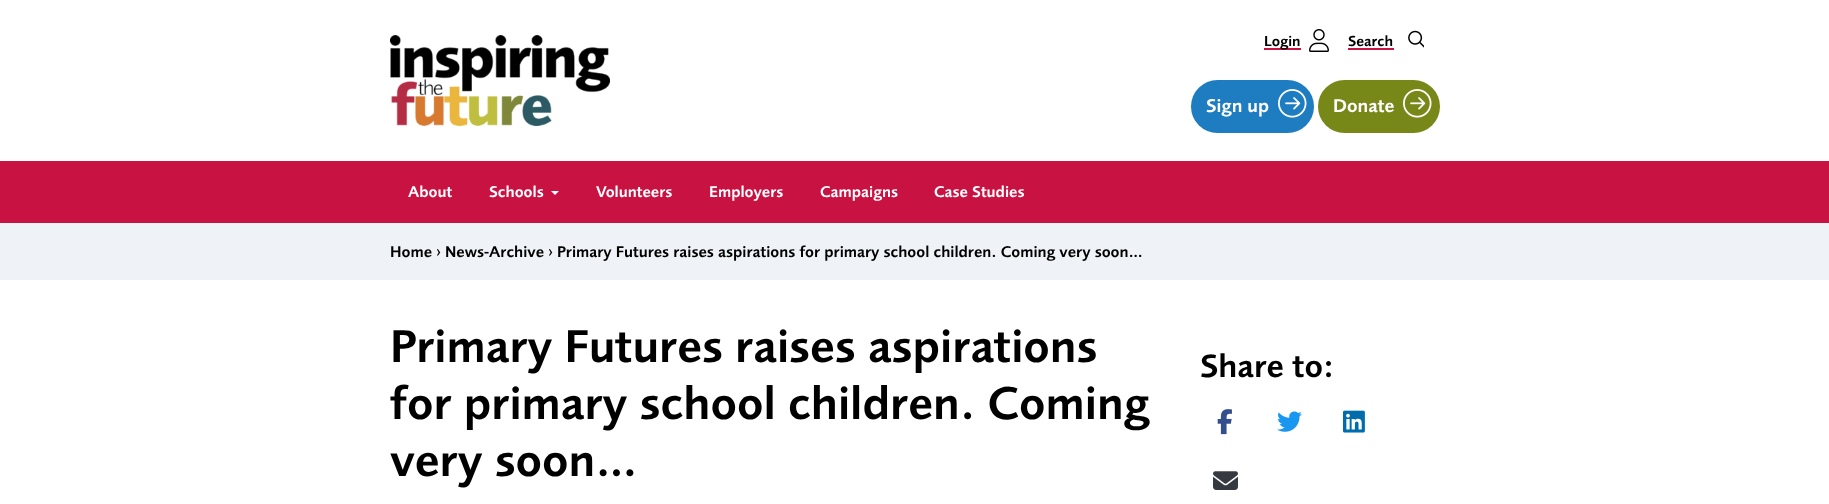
async function draw(canvas) {
  canvas.width = 1829
  canvas.height = 504
  const ctx = canvas.getContext('2d')
  ctx.miterLimit = 4
  ctx.fontKerning = 'normal'
  async function loadImage(src) {
    const img = new Image()
    img.src = src
    await img.decode()
    return img
  }

  ctx.fillStyle = '#eff3f7'
  ctx.fillRect(0, 0, 1829, 504)
  ctx.fillStyle = '#fff'
  ctx.fillRect(0, 0, 1829, 161)
  ctx.drawImage(await loadImage('image0.png'), 390, 35, 220, 91)
  ctx.fillStyle = '#c81242'
  ctx.fillRect(1264, 48, 37, 2)
  ctx.font = '600 15px "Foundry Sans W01"'
  ctx.fillStyle = '#000'
  ctx.fillText('Login', 1264, 46)
  ctx.drawImage(await loadImage('image1.png'), 1309, 29, 20, 23)
  ctx.fillText('Search', 1348, 46)
  ctx.fillStyle = '#c81242'
  ctx.fillRect(1348, 48, 46, 2)
  ctx.drawImage(await loadImage('image2.png'), 1408, 30, 16, 18)
  ctx.fillStyle = '#1e7cc0'
  ctx.beginPath()
  ctx.roundRect(1191, 80, 123, 53, 26.5)
  ctx.fill()
  ctx.font = '600 19px "Foundry Sans W01"'
  ctx.fillStyle = '#fff'
  ctx.fillText('Sign up', 1206, 112)
  ctx.drawImage(await loadImage('image3.png'), 1278, 89, 29, 29)
  ctx.fillStyle = '#778819'
  ctx.beginPath()
  ctx.roundRect(1318, 80, 122, 53, 26.5)
  ctx.fill()
  ctx.fillStyle = '#fff'
  ctx.fillText('Donate', 1333, 112)
  ctx.drawImage(await loadImage('image4.png'), 1403, 89, 29, 29)
  ctx.fillStyle = '#c81242'
  ctx.fillRect(0, 161, 1829, 62)
  ctx.font = '600 16px "Foundry Sans W01"'
  ctx.fillStyle = '#fff'
  ctx.fillText('About', 408, 197)
  ctx.fillText('Schools', 489, 197)
  ctx.beginPath()
  ctx.moveTo(551, 191)
  ctx.lineTo(559, 191)
  ctx.lineTo(555, 195)
  ctx.closePath()
  ctx.fill()
  ctx.fillText('Volunteers', 596, 197)
  ctx.fillText('Employers', 709, 197)
  ctx.fillText('Campaigns', 820, 197)
  ctx.fillText('Case Studies', 934, 197)
  ctx.fillStyle = '#000'
  ctx.fillText('Home', 390, 257)
  ctx.font = '19px "Foundry Sans W01"'
  ctx.fillText('›', 436, 257)
  ctx.font = '600 16px "Foundry Sans W01"'
  ctx.fillText('News-Archive', 445, 257)
  ctx.font = '19px "Foundry Sans W01"'
  ctx.fillText('›', 548, 257)
  ctx.font = '600 16px "Foundry Sans W01"'
  ctx.fillText('Primary Futures raises aspirations for primary school children. Coming very soon…', 557, 257)
  ctx.fillStyle = '#fff'
  ctx.fillRect(0, 280, 1829, 224)
  ctx.font = '600 47.5px "Foundry Sans W01"'
  ctx.fillStyle = '#000'
  ctx.fillText('Primary Futures raises aspirations', 390, 362)
  ctx.fillText('for primary school children. Coming', 390, 419)
  ctx.fillText('very soon…', 390, 476)
  ctx.font = '600 33.25px "Foundry Sans W01"'
  ctx.fillText('Share to:', 1200, 377)
  ctx.drawImage(await loadImage('image5.png'), 1217, 409, 15, 26)
  ctx.drawImage(await loadImage('image6.png'), 1277, 411, 25, 21)
  ctx.drawImage(await loadImage('image7.png'), 1343, 410, 22, 23)
  ctx.drawImage(await loadImage('image8.png'), 1213, 471, 25, 19)
}

draw(document.querySelector('canvas'))
